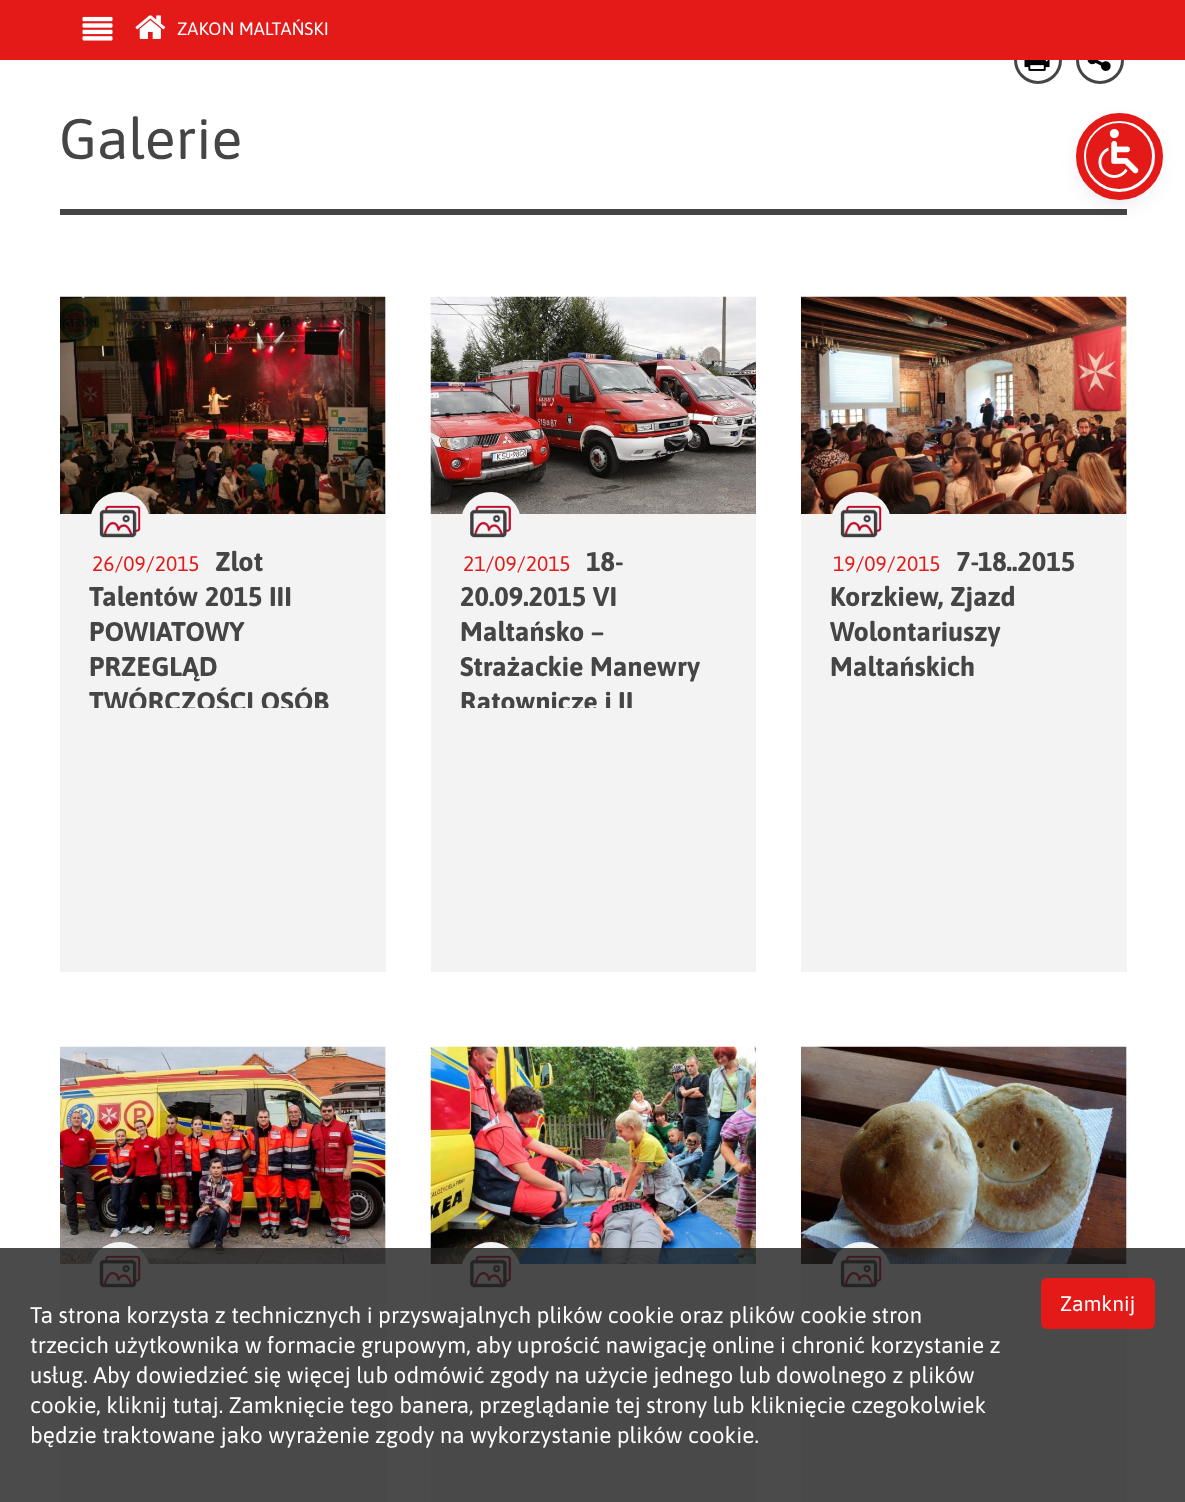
async function draw(canvas) {
  canvas.width = 1185
  canvas.height = 1502
  const ctx = canvas.getContext('2d')
  ctx.miterLimit = 4
  ctx.fontKerning = 'normal'
  async function loadImage(src) {
    const img = new Image()
    img.src = src
    await img.decode()
    return img
  }

  ctx.fillStyle = '#fff'
  ctx.fillRect(0, 0, 1185, 1502)
  ctx.beginPath()
  ctx.arc(1038, 60, 22.5, 0, 2 * Math.PI)
  ctx.strokeStyle = '#454545'
  ctx.lineWidth = 3
  ctx.stroke()
  ctx.beginPath()
  ctx.arc(1100, 60, 22.5, 0, 2 * Math.PI)
  ctx.stroke()
  ctx.fillStyle = '#e31a18'
  ctx.fillRect(0, 0, 1185, 60)
  ctx.drawImage(await loadImage('image0.png'), 82, 16, 31, 25)
  ctx.drawImage(await loadImage('image1.png'), 135, 15, 31, 24)
  ctx.font = '18px Asap'
  ctx.fillStyle = '#fff'
  ctx.fillText('ZAKON MALTAŃSKI', 177, 35)
  ctx.drawImage(await loadImage('image2.png'), 1024, 60, 26, 11)
  ctx.drawImage(await loadImage('image3.png'), 1087, 60, 24, 11)
  ctx.font = '57px Asap'
  ctx.fillStyle = '#454545'
  ctx.fillText('Galerie', 59, 159)
  ctx.fillRect(60, 209, 1067, 6)
  ctx.fillStyle = '#f3f3f3'
  ctx.fillRect(60, 297, 326, 675)
  ctx.drawImage(await loadImage('image4.png'), 60, 296, 326, 218)
  ctx.beginPath()
  ctx.arc(120, 522, 30, 0, 2 * Math.PI)
  ctx.fill()
  ctx.drawImage(await loadImage('image5.png'), 99, 505, 42, 33)
  ctx.font = '21px Asap'
  ctx.fillStyle = '#e31a18'
  ctx.fillText('26/09/2015', 92, 571)
  ctx.font = 'bold 27px Asap'
  ctx.fillStyle = '#454545'
  ctx.fillText('Zlot', 215, 571)
  ctx.fillText('Talentów 2015 III', 89, 606)
  ctx.fillText('POWIATOWY', 89, 641)
  ctx.fillText('PRZEGLĄD', 89, 676)
  ctx.save()
  ctx.beginPath()
  ctx.rect(60, 522, 326, 186)
  ctx.clip()
  ctx.fillText('TWÓRCZOŚCI OSÓB', 89, 711)
  ctx.restore()
  ctx.fillStyle = '#f3f3f3'
  ctx.fillRect(431, 514, 325, 458)
  ctx.drawImage(await loadImage('image6.png'), 430, 296, 326, 218)
  ctx.beginPath()
  ctx.arc(491, 522, 30, 0, 2 * Math.PI)
  ctx.fill()
  ctx.drawImage(await loadImage('image7.png'), 470, 505, 41, 33)
  ctx.font = '21px Asap'
  ctx.fillStyle = '#e31a18'
  ctx.fillText('21/09/2015', 463, 571)
  ctx.font = 'bold 27px Asap'
  ctx.fillStyle = '#454545'
  ctx.fillText('18-', 586, 571)
  ctx.fillText('20.09.2015 VI', 460, 606)
  ctx.fillText('Maltańsko –', 460, 641)
  ctx.fillText('Strażackie Manewry', 460, 676)
  ctx.save()
  ctx.beginPath()
  ctx.rect(431, 522, 325, 186)
  ctx.clip()
  ctx.fillText('Ratownicze i II', 460, 711)
  ctx.restore()
  ctx.fillStyle = '#f3f3f3'
  ctx.fillRect(801, 297, 326, 675)
  ctx.drawImage(await loadImage('image8.png'), 801, 296, 326, 218)
  ctx.beginPath()
  ctx.arc(861, 522, 30, 0, 2 * Math.PI)
  ctx.fill()
  ctx.drawImage(await loadImage('image5.png'), 840, 505, 42, 33)
  ctx.font = '21px Asap'
  ctx.fillStyle = '#e31a18'
  ctx.fillText('19/09/2015', 833, 571)
  ctx.font = 'bold 27px Asap'
  ctx.fillStyle = '#454545'
  ctx.fillText('7-18..2015', 956, 571)
  ctx.fillText('Korzkiew, Zjazd', 830, 606)
  ctx.fillText('Wolontariuszy', 830, 641)
  ctx.fillText('Maltańskich', 830, 676)
  ctx.fillStyle = '#f3f3f3'
  ctx.fillRect(60, 1047, 326, 455)
  ctx.drawImage(await loadImage('image9.png'), 60, 1046, 326, 218)
  ctx.beginPath()
  ctx.arc(120, 1272, 30, 0, 2 * Math.PI)
  ctx.fill()
  ctx.drawImage(await loadImage('image5.png'), 99, 1255, 42, 33)
  ctx.fillRect(431, 1264, 325, 238)
  ctx.drawImage(await loadImage('image10.png'), 430, 1046, 326, 218)
  ctx.beginPath()
  ctx.arc(491, 1272, 30, 0, 2 * Math.PI)
  ctx.fill()
  ctx.drawImage(await loadImage('image7.png'), 470, 1255, 41, 33)
  ctx.fillRect(801, 1047, 326, 455)
  ctx.drawImage(await loadImage('image11.png'), 801, 1046, 326, 218)
  ctx.beginPath()
  ctx.arc(861, 1272, 30, 0, 2 * Math.PI)
  ctx.fill()
  ctx.drawImage(await loadImage('image5.png'), 840, 1255, 42, 33)
  ctx.fillStyle = '#5d649433'
  ctx.filter = 'blur(3px)'
  ctx.beginPath()
  ctx.roundRect(1083, 123, 72, 72, 36)
  ctx.fill()
  ctx.filter = 'none'
  ctx.fillStyle = '#252c6126'
  ctx.filter = 'blur(11px)'
  ctx.beginPath()
  ctx.roundRect(1083, 128, 72, 72, 36)
  ctx.fill()
  ctx.filter = 'none'
  ctx.fillStyle = '#e31a18'
  ctx.beginPath()
  ctx.arc(1119, 156, 34.5, 0, 2 * Math.PI)
  ctx.fill()
  ctx.strokeStyle = '#fff'
  ctx.stroke()
  ctx.beginPath()
  ctx.arc(1119.5, 156.5, 39.5, 0, 2 * Math.PI)
  ctx.strokeStyle = '#e31a18'
  ctx.lineWidth = 8
  ctx.stroke()
  ctx.drawImage(await loadImage('image12.png'), 1098, 129, 41, 49)
  ctx.fillStyle = '#1e1e1ecc'
  ctx.fillRect(0, 1248, 1185, 254)
  ctx.font = '22.5px Asap'
  ctx.fillStyle = '#fff'
  ctx.fillText('Ta strona korzysta z technicznych i przyswajalnych plików cookie oraz plików cookie stron', 30, 1323)
  ctx.fillText('trzecich użytkownika w formacie grupowym, aby uprościć nawigację online i chronić korzystanie z', 30, 1353)
  ctx.fillText('usług. Aby dowiedzieć się więcej lub odmówić zgody na użycie jednego lub dowolnego z plików', 30, 1383)
  ctx.fillText('cookie, kliknij tutaj. Zamknięcie tego banera, przeglądanie tej strony lub kliknięcie czegokolwiek', 30, 1413)
  ctx.fillText('będzie traktowane jako wyrażenie zgody na wykorzystanie plików cookie.', 30, 1443)
  ctx.fillStyle = '#e31a18'
  ctx.beginPath()
  ctx.roundRect(1041, 1278, 114, 51, 6)
  ctx.fill()
  ctx.font = '21px Asap'
  ctx.fillStyle = '#fff'
  ctx.fillText('Zamknij', 1060, 1311)
}

draw(document.querySelector('canvas'))
